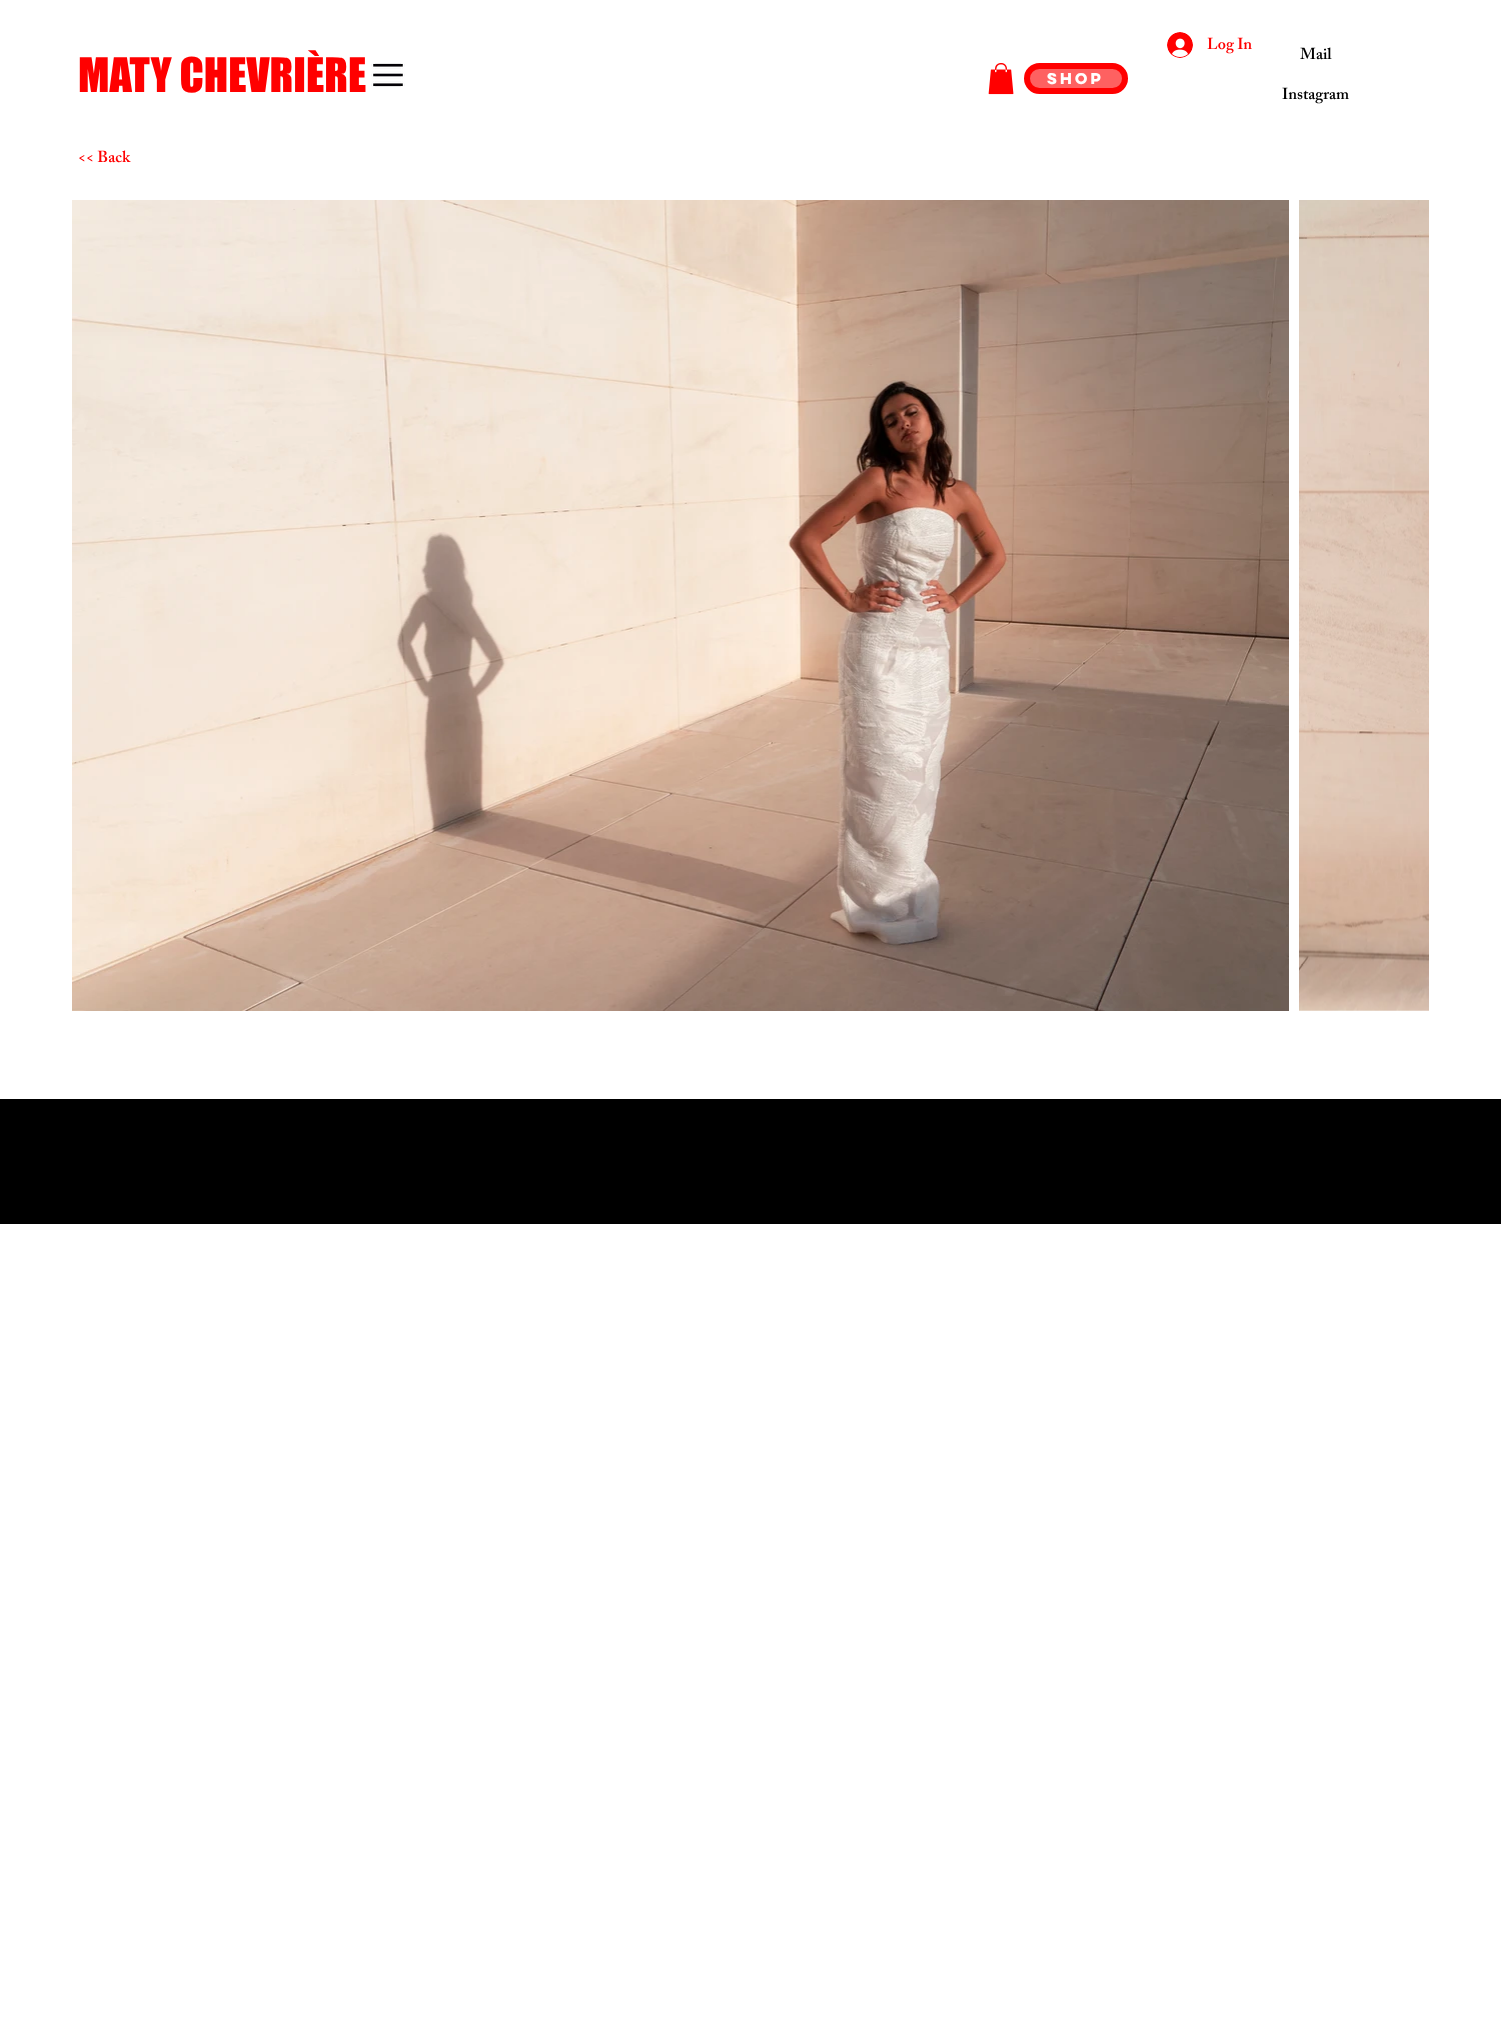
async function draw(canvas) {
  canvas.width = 1501
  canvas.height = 2034
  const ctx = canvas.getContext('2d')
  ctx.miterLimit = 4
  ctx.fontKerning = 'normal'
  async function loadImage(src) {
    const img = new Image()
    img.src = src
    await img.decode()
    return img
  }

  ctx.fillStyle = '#fff'
  ctx.fillRect(0, 0, 1501, 2034)
  ctx.drawImage(await loadImage('image0.png'), 1167, 32, 26, 26)
  ctx.font = '600 16px "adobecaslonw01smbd"'
  ctx.fillStyle = '#f00'
  ctx.fillText('Log In', 1207, 49)
  ctx.font = '44px "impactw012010"'
  ctx.fillText('MATY CHEVRIÈRE', 78, 92)
  ctx.drawImage(await loadImage('image1.png'), 371, 63, 34, 24)
  ctx.drawImage(await loadImage('image2.png'), 988, 63, 26, 32)
  ctx.fillStyle = '#fe6161'
  ctx.beginPath()
  ctx.roundRect(1027, 66, 98, 25, 12.5)
  ctx.fill()
  ctx.strokeStyle = '#f00'
  ctx.lineWidth = 6
  ctx.stroke()
  ctx.font = 'bold 14px "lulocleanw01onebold"'
  ctx.fillStyle = '#fff'
  ctx.fillText('SHOP', 1047, 84)
  ctx.font = '600 16px "adobecaslonw01smbd"'
  ctx.fillStyle = '#000'
  ctx.fillText('Mail', 1300, 59)
  ctx.fillText('Instagram', 1282, 99)
  ctx.fillStyle = '#f00'
  ctx.fillText('<< Back', 78, 162)
  ctx.drawImage(await loadImage('image3.png'), 72, 200, 1217, 811)
  ctx.drawImage(await loadImage('image4.png'), 1299, 200, 130, 811)
  ctx.fillStyle = '#000'
  ctx.fillRect(0, 1099, 1501, 125)
}

draw(document.querySelector('canvas'))
